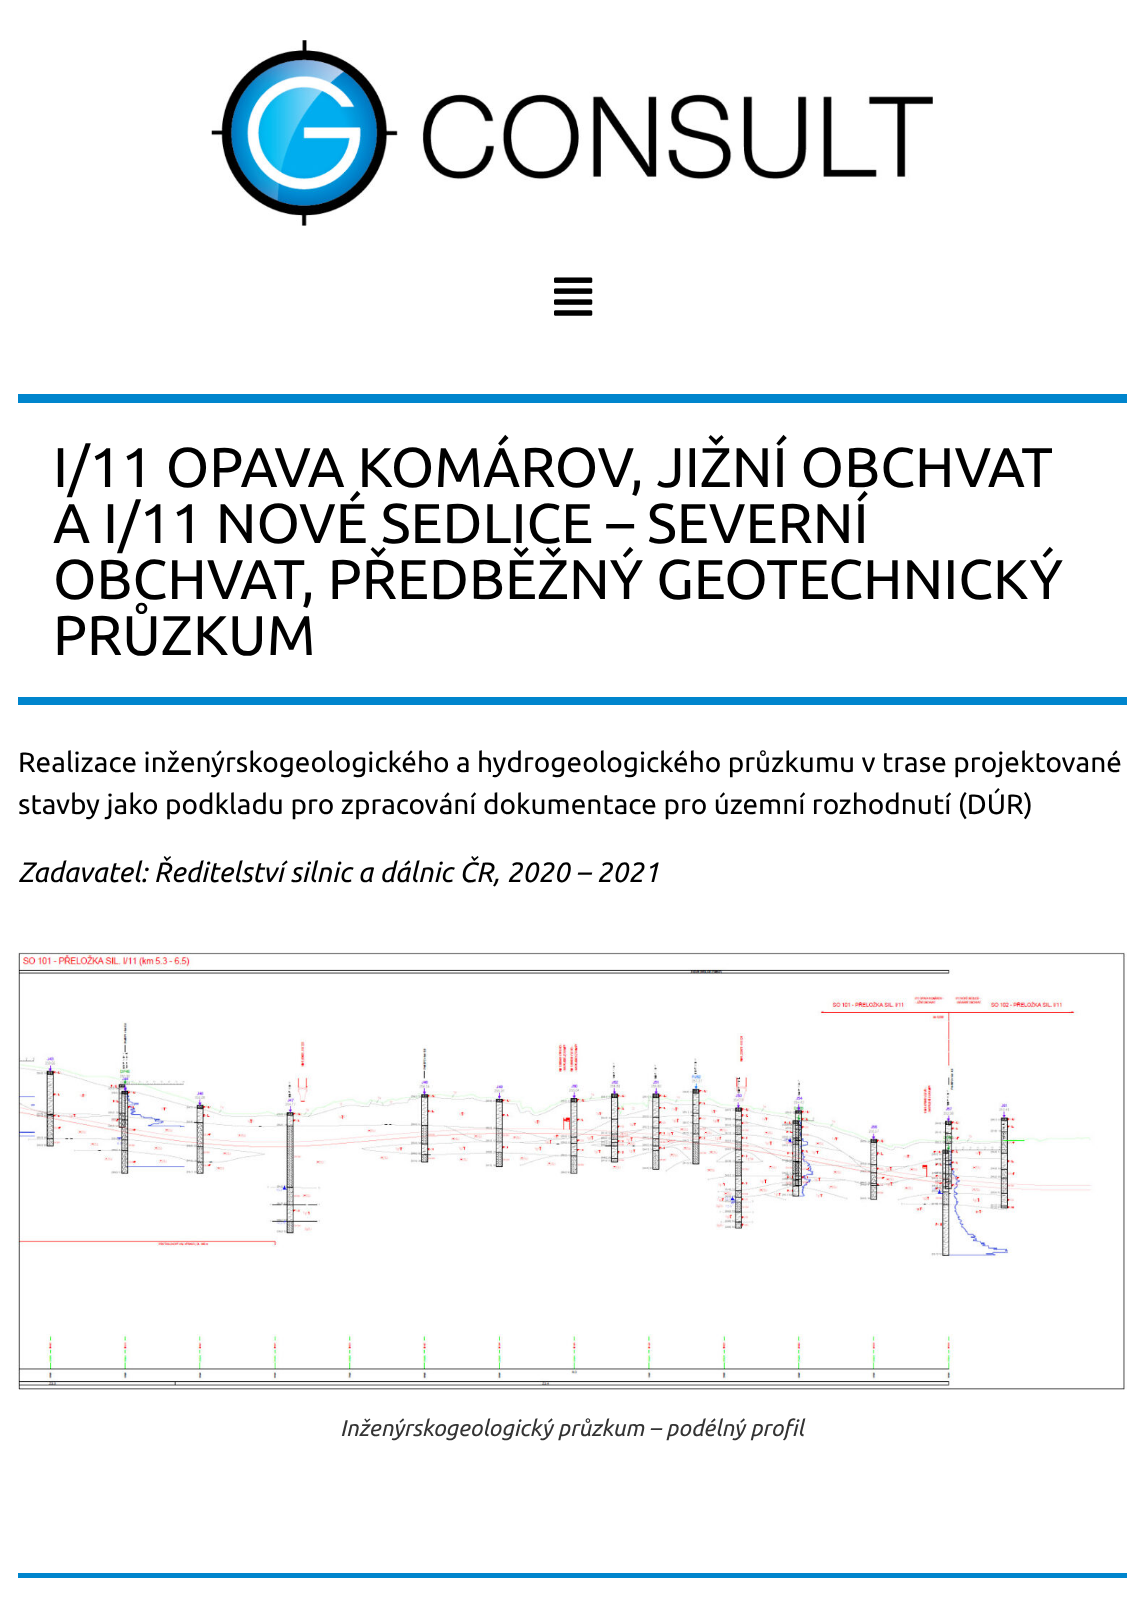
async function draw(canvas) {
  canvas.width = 1144
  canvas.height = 1612
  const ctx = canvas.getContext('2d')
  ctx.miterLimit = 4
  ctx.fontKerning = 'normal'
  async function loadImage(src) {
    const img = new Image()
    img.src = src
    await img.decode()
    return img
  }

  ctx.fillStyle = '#fff'
  ctx.fillRect(0, 0, 1144, 1612)
  ctx.drawImage(await loadImage('image0.png'), 211, 40, 722, 186)
  ctx.drawImage(await loadImage('image1.png'), 554, 277, 39, 39)
  ctx.fillStyle = '#0085cd'
  ctx.fillRect(18, 394, 1109, 9)
  ctx.fillRect(18, 697, 1109, 8)
  ctx.font = '56px Ubuntu'
  ctx.fillStyle = '#000'
  ctx.fillText('I/11 OPAVA KOMÁROV, JIŽNÍ OBCHVAT', 53, 487)
  ctx.fillText('A I/11 NOVÉ SEDLICE – SEVERNÍ', 53, 543)
  ctx.fillText('OBCHVAT, PŘEDBĚŽNÝ GEOTECHNICKÝ', 53, 599)
  ctx.fillText('PRŮZKUM', 53, 655)
  ctx.font = '28px Ubuntu'
  ctx.fillText('Realizace inženýrskogeologického a hydrogeologického průzkumu v trase projektované', 18, 772)
  ctx.fillText('stavby jako podkladu pro zpracování dokumentace pro územní rozhodnutí (DÚR)', 18, 814)
  ctx.font = 'italic 28px Ubuntu'
  ctx.fillText('Zadavatel: Ředitelství silnic a dálnic ČR, 2020 – 2021', 18, 882)
  ctx.drawImage(await loadImage('image2.png'), 17, 952, 1110, 438)
  ctx.font = 'italic 22.75px Ubuntu'
  ctx.fillStyle = '#333'
  ctx.fillText('Inženýrskogeologický průzkum – podélný profil', 340, 1436)
  ctx.fillStyle = '#0085cd'
  ctx.fillRect(18, 1573, 1109, 5)
}

draw(document.querySelector('canvas'))
